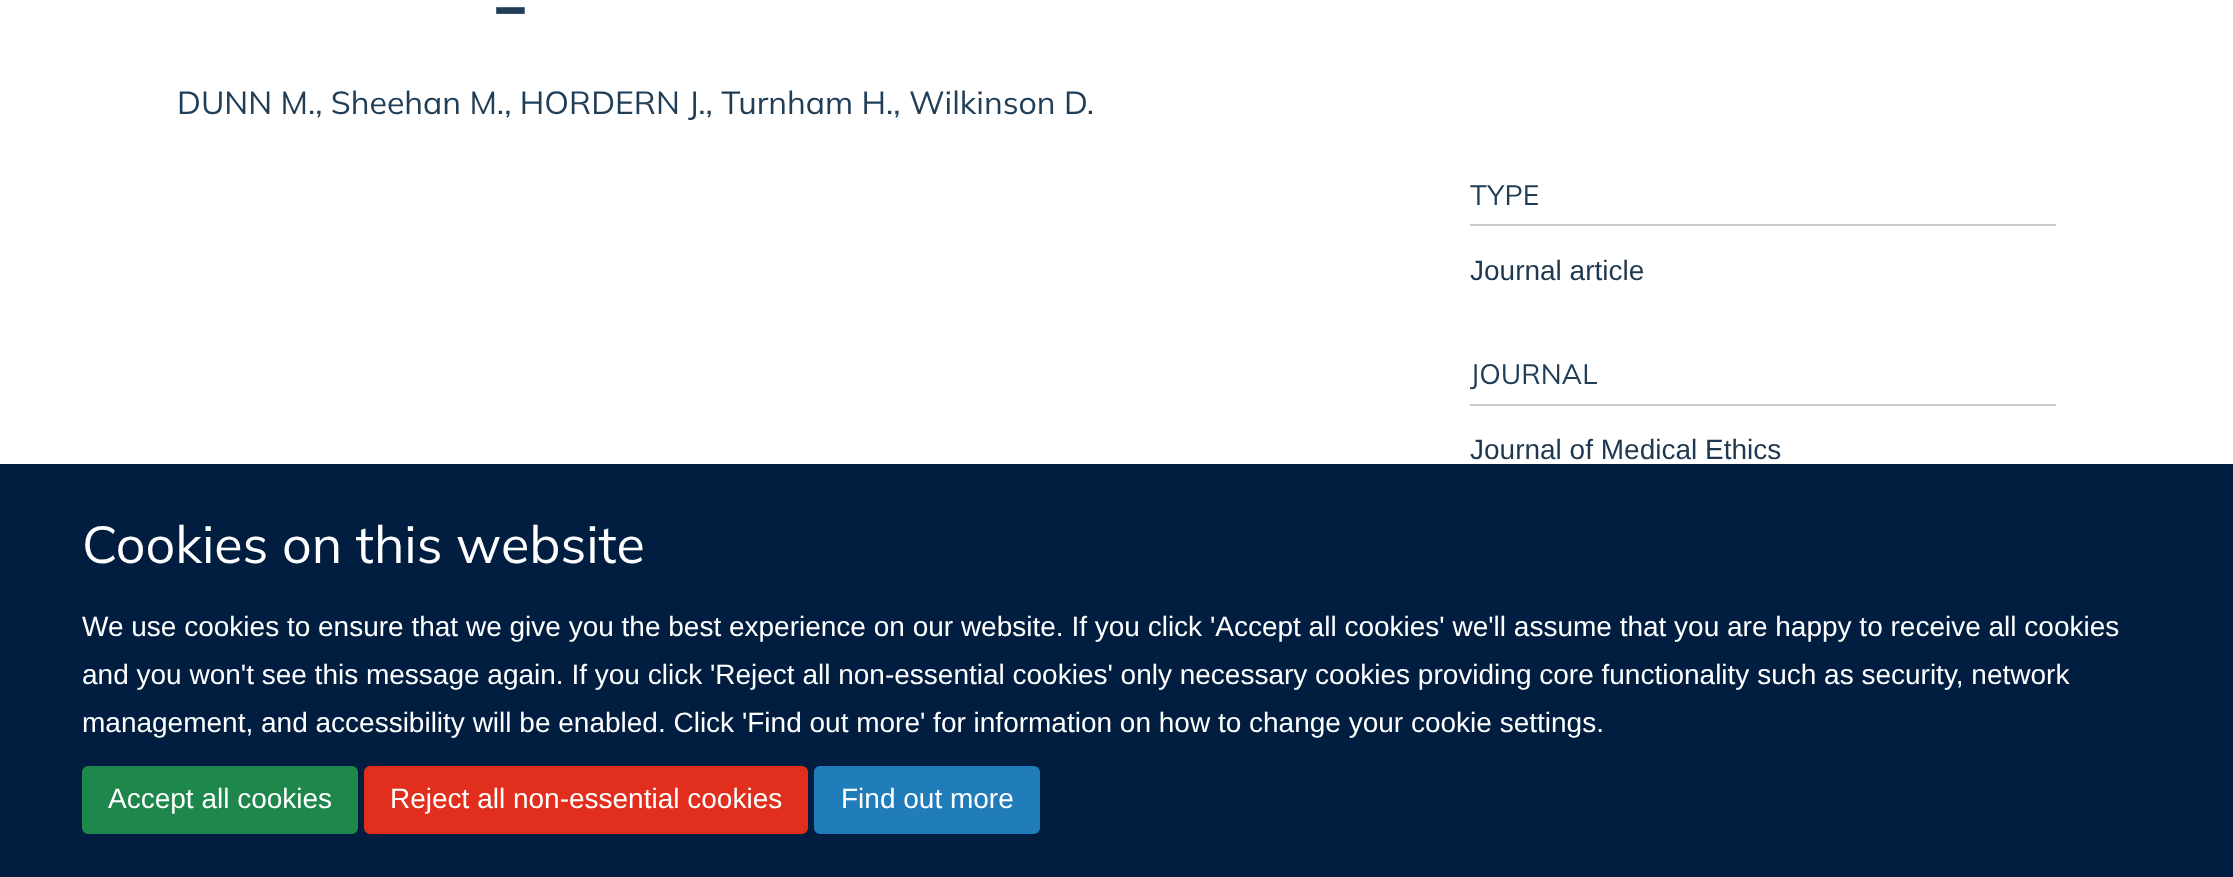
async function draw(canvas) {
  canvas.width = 2233
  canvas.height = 877
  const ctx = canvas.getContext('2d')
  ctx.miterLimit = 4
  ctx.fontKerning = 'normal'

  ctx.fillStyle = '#fff'
  ctx.fillRect(0, 0, 2233, 877)
  ctx.font = '100px Mulish'
  ctx.fillStyle = '#203e58'
  ctx.fillText('-', 489, 38)
  ctx.font = '32px Mulish'
  ctx.fillText('DUNN M., Sheehan M., HORDERN J., Turnham H., Wilkinson D.', 177, 114)
  ctx.fillStyle = '#c6cacf'
  ctx.fillRect(1470, 224, 586, 2)
  ctx.font = '28px Mulish'
  ctx.fillStyle = '#203e58'
  ctx.fillText('TYPE', 1470, 205)
  ctx.font = '28px Liberation Sans'
  ctx.fillStyle = '#1d3850'
  ctx.fillText('Journal article', 1470, 280)
  ctx.fillStyle = '#c6cacf'
  ctx.fillRect(1470, 404, 586, 2)
  ctx.font = '28px Mulish'
  ctx.fillStyle = '#203e58'
  ctx.fillText('JOURNAL', 1470, 384)
  ctx.font = '28px Liberation Sans'
  ctx.fillStyle = '#1d3850'
  ctx.fillText('Journal of Medical Ethics', 1470, 459)
  ctx.fillStyle = '#011e41'
  ctx.fillRect(0, 464, 2233, 413)
  ctx.font = '52px Mulish'
  ctx.fillStyle = '#fff'
  ctx.fillText('Cookies on this website', 82, 563)
  ctx.font = '28px Liberation Sans'
  ctx.fillText('We use cookies to ensure that we give you the best experience on our website. If you click \'Accept all cookies\' we\'ll assume that you are happy to receive all cookies', 82, 636)
  ctx.fillText('and you won\'t see this message again. If you click \'Reject all non-essential cookies\' only necessary cookies providing core functionality such as security, network', 82, 684)
  ctx.fillText('management, and accessibility will be enabled. Click \'Find out more\' for information on how to change your cookie settings.', 82, 732)
  ctx.fillStyle = '#1e874b'
  ctx.beginPath()
  ctx.roundRect(83, 767, 274, 66, 5)
  ctx.fill()
  ctx.strokeStyle = '#1e874b'
  ctx.lineWidth = 2
  ctx.stroke()
  ctx.fillStyle = '#fff'
  ctx.fillText('Accept all cookies', 108, 808)
  ctx.fillStyle = '#e22e1c'
  ctx.beginPath()
  ctx.roundRect(365, 767, 442, 66, 5)
  ctx.fill()
  ctx.strokeStyle = '#e22e1c'
  ctx.stroke()
  ctx.fillStyle = '#fff'
  ctx.fillText('Reject all non-essential cookies', 390, 808)
  ctx.fillStyle = '#217cba'
  ctx.beginPath()
  ctx.roundRect(815, 767, 224, 66, 5)
  ctx.fill()
  ctx.strokeStyle = '#217cba'
  ctx.stroke()
  ctx.fillStyle = '#fff'
  ctx.fillText('Find out more', 841, 808)
}

draw(document.querySelector('canvas'))
